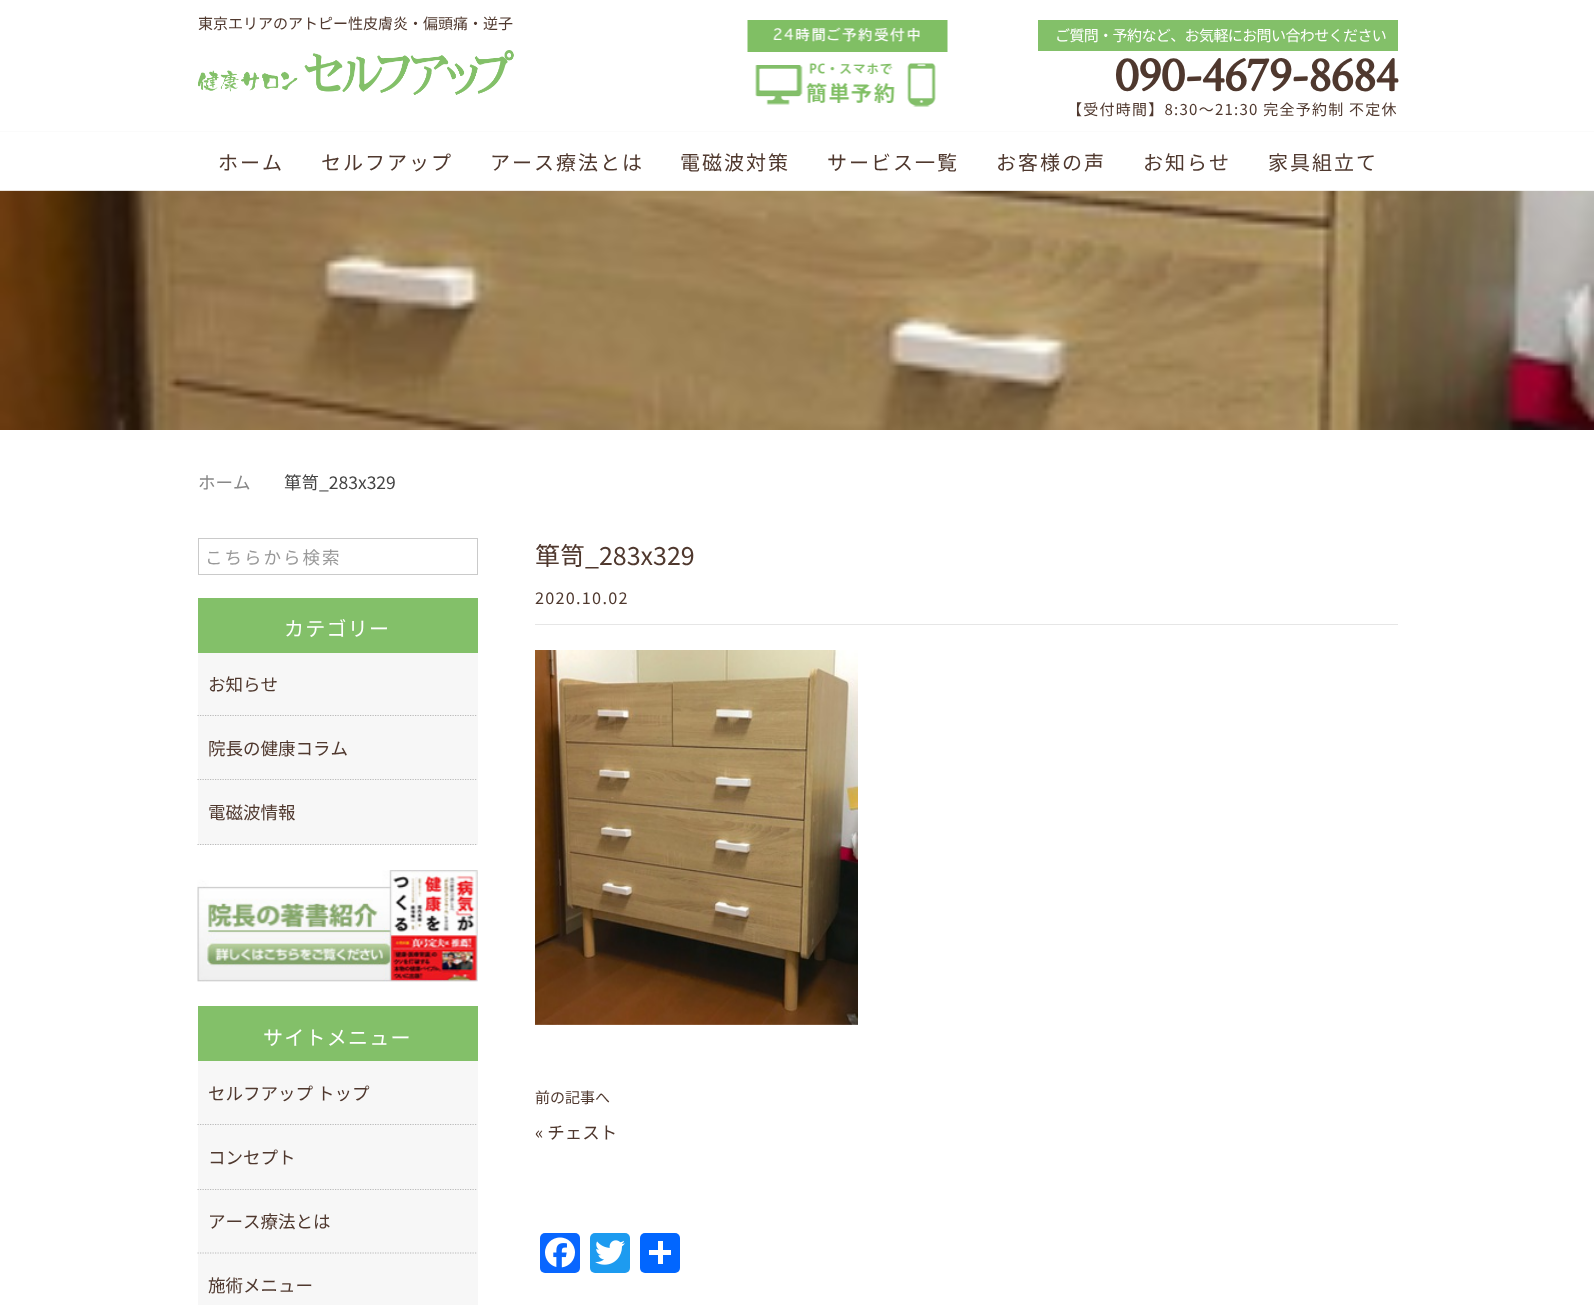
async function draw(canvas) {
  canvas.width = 1594
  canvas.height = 1305
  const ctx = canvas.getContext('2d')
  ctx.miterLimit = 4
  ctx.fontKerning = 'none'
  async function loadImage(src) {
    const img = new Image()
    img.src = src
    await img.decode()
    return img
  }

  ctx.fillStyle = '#fff'
  ctx.fillRect(0, 0, 1594, 1305)
  ctx.fillStyle = '#e5e1e0'
  ctx.fillRect(0, 131, 1594, 1)
  ctx.font = '15px Noto Sans JP'
  ctx.fillStyle = '#4f382e'
  ctx.fillText('東京エリアのアトピー性皮膚炎・偏頭痛・逆子', 198, 29)
  ctx.drawImage(await loadImage('image0.png'), 747, 20, 201, 87)
  ctx.fillStyle = '#83c069'
  ctx.fillRect(1038, 20, 360, 31)
  ctx.letterSpacing = '-0.6px'
  ctx.fillStyle = '#fff'
  ctx.fillText('ご質問・予約など、お気軽にお問い合わせください', 1055, 41)
  ctx.letterSpacing = '-1.25px'
  ctx.font = 'bold 50px Crimson Text'
  ctx.fillStyle = '#4f382e'
  ctx.fillText('090-4679-8684', 1114, 91)
  ctx.letterSpacing = '1.25px'
  ctx.font = '15px Noto Sans JP'
  ctx.fillText('【受付時間】8:30～21:30 完全予約制 不定休', 1067, 115)
  ctx.drawImage(await loadImage('image1.png'), 198, 50, 316, 45)
  ctx.drawImage(await loadImage('image2.png'), 0, 190, 1594, 240)
  ctx.fillStyle = '#ffffffd9'
  ctx.fillRect(0, 131, 1594, 60)
  ctx.letterSpacing = '2px'
  ctx.font = '20px Noto Sans JP'
  ctx.fillStyle = '#4f382e'
  ctx.fillText('ホーム', 218, 170)
  ctx.fillText('セルフアップ', 321, 170)
  ctx.fillText('アース療法とは', 490, 170)
  ctx.fillText('電磁波対策', 680, 170)
  ctx.fillText('サービス一覧', 827, 170)
  ctx.fillText('お客様の声', 996, 170)
  ctx.fillText('お知らせ', 1143, 170)
  ctx.fillText('家具組立て', 1268, 170)
  ctx.letterSpacing = '0px'
  ctx.font = '17.5px Noto Sans JP'
  ctx.fillStyle = '#888'
  ctx.fillText('ホーム', 198, 489)
  ctx.fillStyle = '#444'
  ctx.fillText('箪笥_283x329', 284, 489)
  ctx.strokeStyle = '#cacaca'
  ctx.strokeRect(198.5, 538.5, 279, 36)
  ctx.letterSpacing = '2px'
  ctx.fillStyle = '#999'
  ctx.fillText('こちらから検索', 205, 564)
  ctx.fillStyle = '#f7f7f7'
  ctx.fillRect(198, 653, 280, 192)
  ctx.fillStyle = '#83c069'
  ctx.fillRect(198, 598, 280, 55)
  ctx.letterSpacing = '1.25px'
  ctx.font = '20px Noto Sans JP'
  ctx.fillStyle = '#fff'
  ctx.fillText('カテゴリー', 284, 636)
  ctx.beginPath()
  ctx.moveTo(197.5, 715.5)
  ctx.lineTo(477.5, 715.5)
  ctx.strokeStyle = '#bababa'
  ctx.lineWidth = 1.2
  ctx.setLineDash([1.25, 1.25])
  ctx.stroke()
  ctx.letterSpacing = '0px'
  ctx.font = '17.5px Noto Sans JP'
  ctx.fillStyle = '#4f382e'
  ctx.fillText('お知らせ', 208, 691)
  ctx.beginPath()
  ctx.moveTo(197.5, 779.5)
  ctx.lineTo(477.5, 779.5)
  ctx.stroke()
  ctx.fillText('院長の健康コラム', 208, 755)
  ctx.beginPath()
  ctx.moveTo(197.5, 844.5)
  ctx.lineTo(477.5, 844.5)
  ctx.stroke()
  ctx.fillText('電磁波情報', 208, 819)
  ctx.fillStyle = '#f7f7f7'
  ctx.fillRect(198, 870, 280, 111)
  ctx.drawImage(await loadImage('image3.png'), 197, 870, 281, 112)
  ctx.fillRect(198, 1061, 280, 244)
  ctx.fillStyle = '#83c069'
  ctx.fillRect(198, 1006, 280, 55)
  ctx.letterSpacing = '1.25px'
  ctx.font = '20px Noto Sans JP'
  ctx.fillStyle = '#fff'
  ctx.fillText('サイトメニュー', 263, 1045)
  ctx.beginPath()
  ctx.moveTo(197.5, 1124.5)
  ctx.lineTo(477.5, 1124.5)
  ctx.stroke()
  ctx.letterSpacing = '0px'
  ctx.font = '17.5px Noto Sans JP'
  ctx.fillStyle = '#4f382e'
  ctx.fillText('セルフアップ トップ', 208, 1100)
  ctx.beginPath()
  ctx.moveTo(197.5, 1189.5)
  ctx.lineTo(477.5, 1189.5)
  ctx.stroke()
  ctx.fillText('コンセプト', 208, 1164)
  ctx.beginPath()
  ctx.moveTo(197.5, 1253)
  ctx.lineTo(477.5, 1253)
  ctx.stroke()
  ctx.fillText('アース療法とは', 208, 1228)
  ctx.fillText('施術メニュー', 208, 1292)
  ctx.fillStyle = '#e6e6e6'
  ctx.fillRect(535, 624, 863, 1)
  ctx.font = '25px Noto Sans JP'
  ctx.fillStyle = '#4f382e'
  ctx.fillText('箪笥_283x329', 535, 565)
  ctx.letterSpacing = '1.25px'
  ctx.font = '16.25px Noto Sans JP'
  ctx.fillText('2020.10.02', 535, 604)
  ctx.drawImage(await loadImage('image4.png'), 535, 650, 323, 375)
  ctx.letterSpacing = '0px'
  ctx.font = '15px Noto Sans JP'
  ctx.fillText('前の記事へ', 535, 1103)
  ctx.font = '17.5px Noto Sans JP'
  ctx.fillText('« チェスト', 535, 1139)
  ctx.fillStyle = '#0866ff'
  ctx.beginPath()
  ctx.roundRect(540, 1233, 40, 40, 5)
  ctx.fill()
  ctx.drawImage(await loadImage('image5.png'), 545, 1237, 30, 31)
  ctx.fillStyle = '#1d9bf0'
  ctx.beginPath()
  ctx.roundRect(590, 1233, 40, 40, 5)
  ctx.fill()
  ctx.drawImage(await loadImage('image6.png'), 595, 1240, 30, 25)
  ctx.fillStyle = '#0166ff'
  ctx.beginPath()
  ctx.roundRect(640, 1233, 40, 40, 5)
  ctx.fill()
  ctx.fillStyle = '#fff'
  ctx.fillRect(658, 1241, 5, 23)
  ctx.fillRect(649, 1250, 22, 5)
}

draw(document.querySelector('canvas'))
